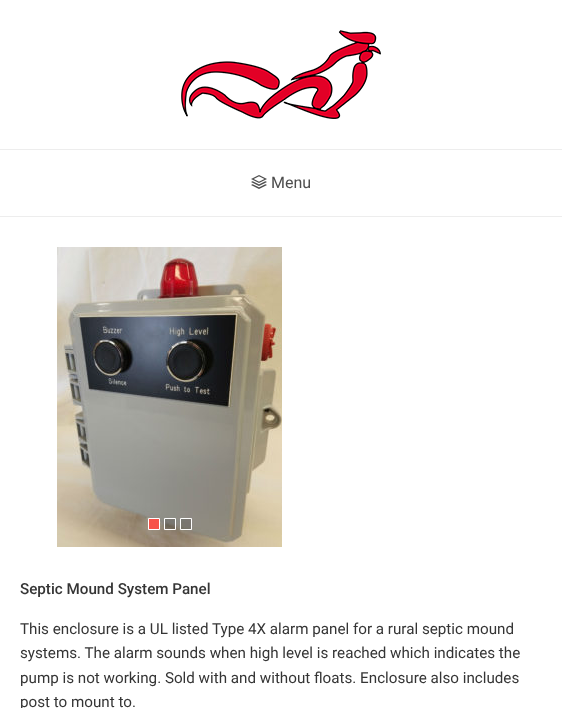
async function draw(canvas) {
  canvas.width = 562
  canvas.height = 708
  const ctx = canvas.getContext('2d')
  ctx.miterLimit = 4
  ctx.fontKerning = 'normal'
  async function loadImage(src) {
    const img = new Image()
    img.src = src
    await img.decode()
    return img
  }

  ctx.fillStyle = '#fff'
  ctx.fillRect(0, 0, 562, 708)
  ctx.fillStyle = '#ededed'
  ctx.fillRect(0, 149, 562, 1)
  ctx.drawImage(await loadImage('image0.png'), 181, 30, 200, 89)
  ctx.fillRect(0, 216, 562, 1)
  ctx.drawImage(await loadImage('image1.png'), 251, 175, 16, 14)
  ctx.font = '16px Roboto'
  ctx.fillStyle = '#4d4d4d'
  ctx.fillText('Menu', 271, 188)
  ctx.drawImage(await loadImage('image2.png'), 57, 247, 225, 300)
  ctx.fillStyle = '#f75148'
  ctx.beginPath()
  ctx.rect(148.5, 518.5, 11, 11)
  ctx.fill()
  ctx.strokeStyle = '#fff'
  ctx.stroke()
  ctx.fillStyle = '#00000026'
  ctx.beginPath()
  ctx.rect(164.5, 518.5, 11, 11)
  ctx.fill()
  ctx.stroke()
  ctx.beginPath()
  ctx.rect(180.5, 518.5, 11, 11)
  ctx.fill()
  ctx.stroke()
  ctx.font = '500 15.2px Roboto'
  ctx.fillStyle = '#353535'
  ctx.fillText('Septic Mound System Panel', 20, 594)
  ctx.font = '15.2px Roboto'
  ctx.fillText('This enclosure is a UL listed Type 4X alarm panel for a rural septic mound', 20, 634)
  ctx.fillText('systems. The alarm sounds when high level is reached which indicates the', 20, 658)
  ctx.fillText('pump is not working. Sold with and without floats. Enclosure also includes', 20, 683)
  ctx.fillText('post to mount to.', 20, 707)
}

draw(document.querySelector('canvas'))
